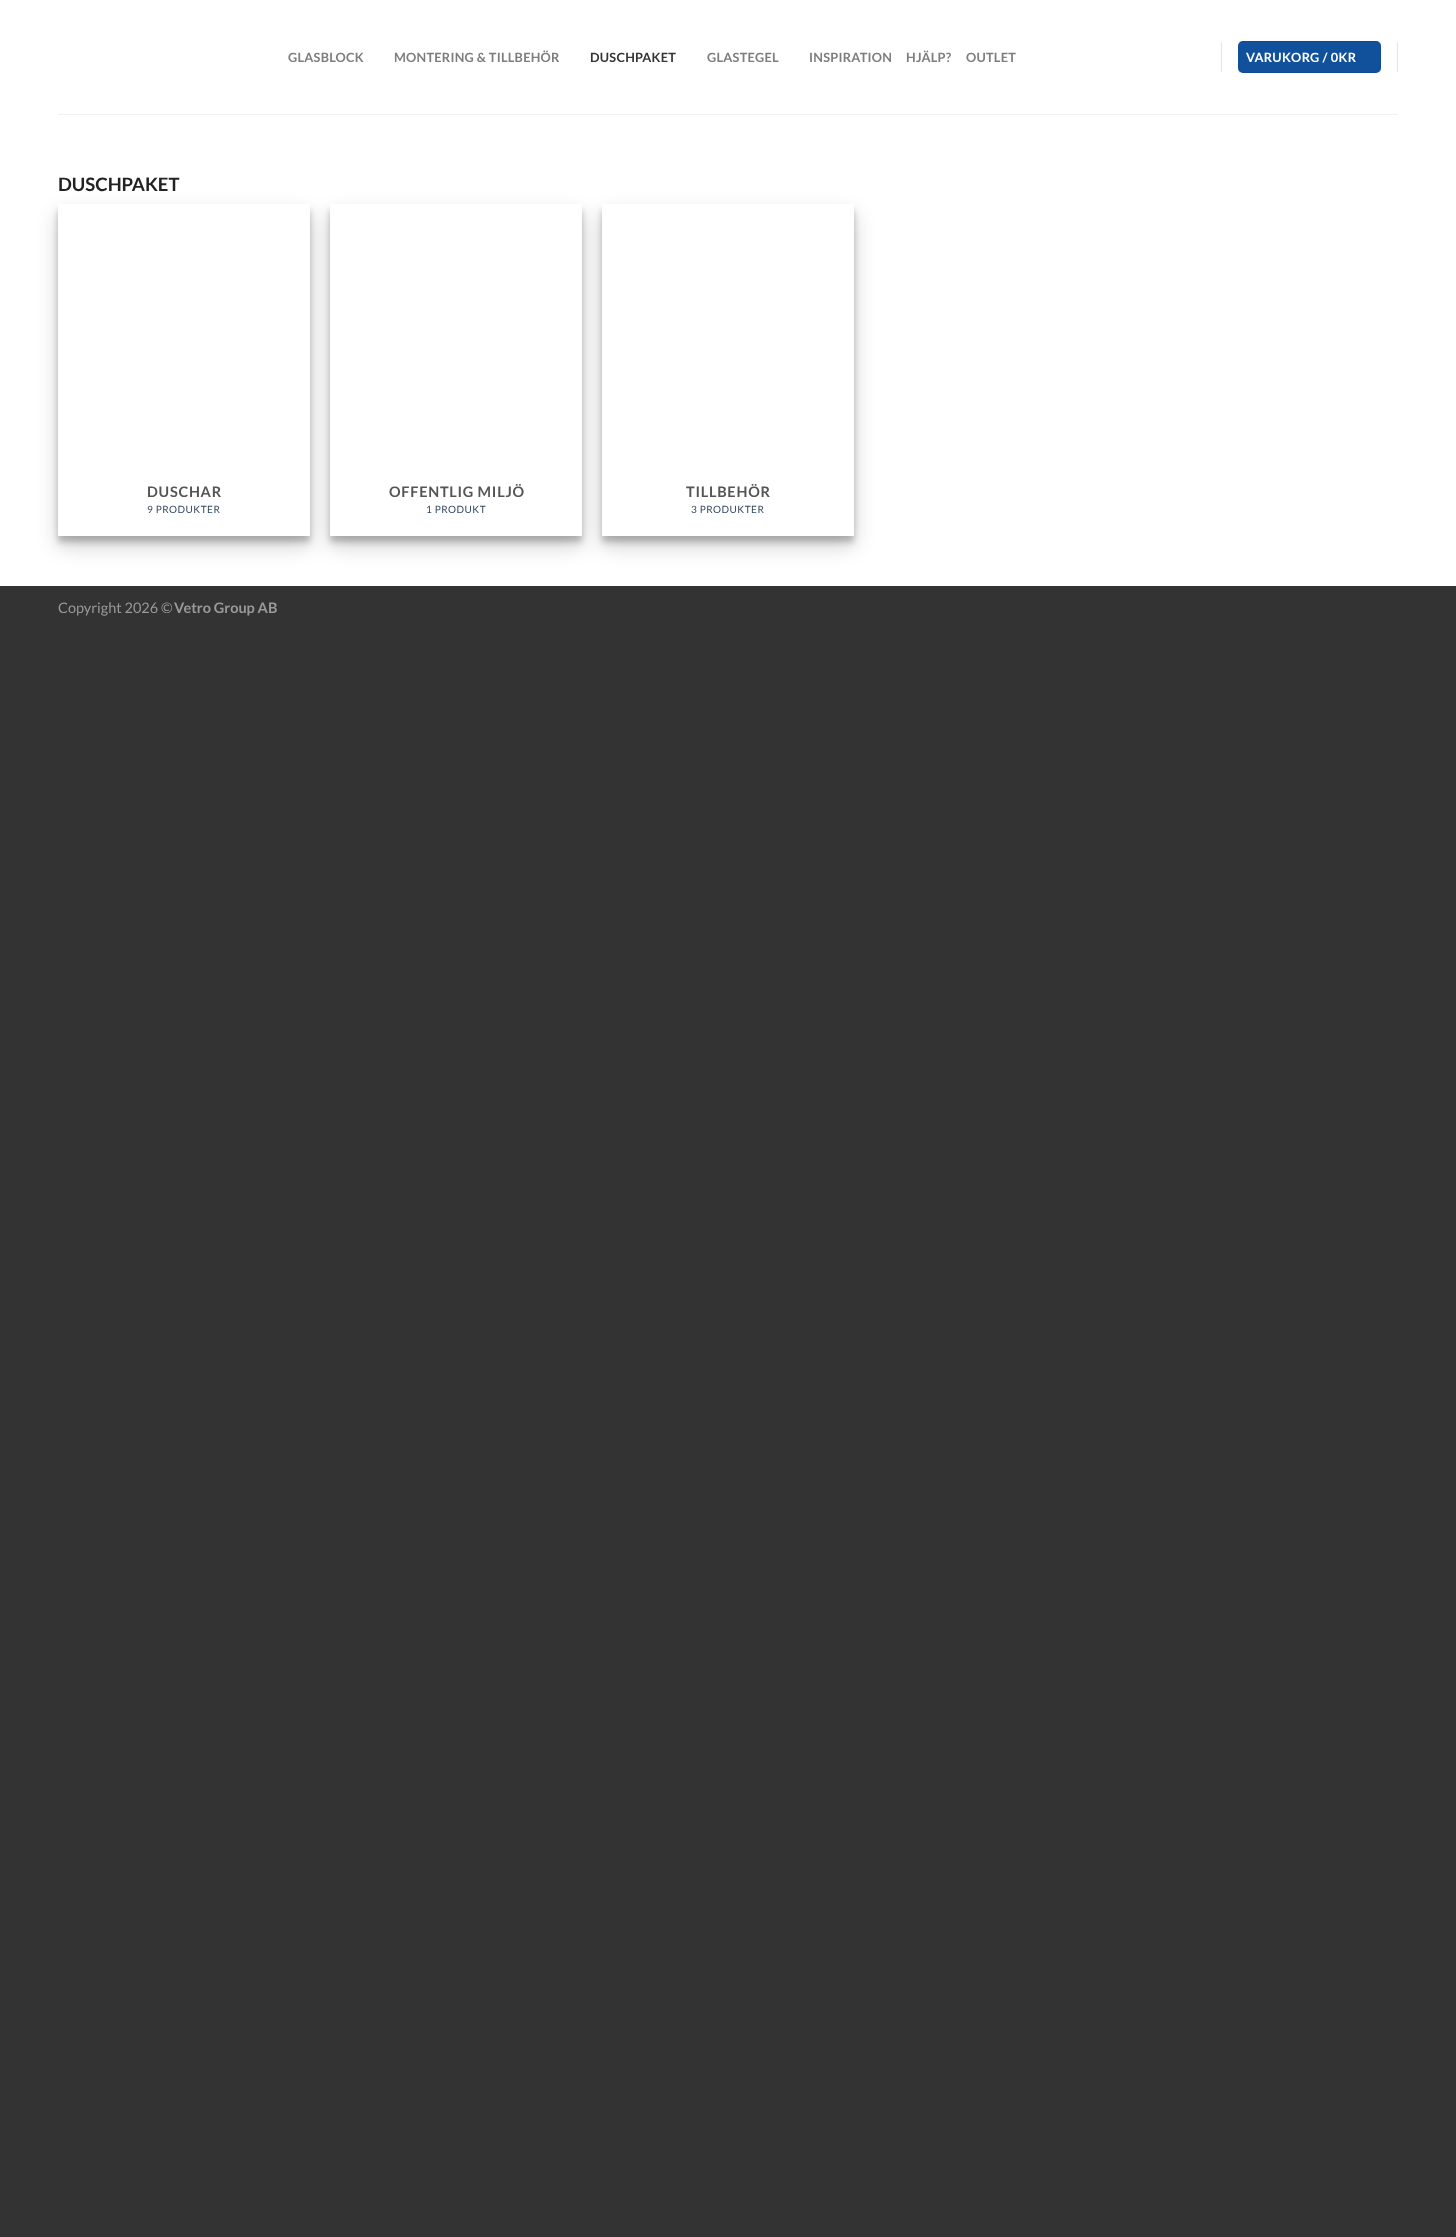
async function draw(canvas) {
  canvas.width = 1456
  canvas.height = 2237
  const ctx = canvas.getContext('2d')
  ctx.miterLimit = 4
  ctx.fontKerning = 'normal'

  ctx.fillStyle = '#333'
  ctx.fillRect(0, 0, 1456, 2237)
  ctx.fillStyle = '#fff'
  ctx.fillRect(0, 0, 1456, 586)
  ctx.letterSpacing = '0.25px'
  ctx.font = 'bold 12.75px Lato'
  ctx.fillStyle = '#7d7d7d'
  ctx.fillText('GLASBLOCK', 288, 62)
  ctx.fillText('MONTERING & TILLBEHÖR', 394, 62)
  ctx.fillStyle = '#353535'
  ctx.fillText('DUSCHPAKET', 590, 62)
  ctx.fillStyle = '#7d7d7d'
  ctx.fillText('GLASTEGEL', 707, 62)
  ctx.fillText('INSPIRATION', 809, 62)
  ctx.fillText('HJÄLP?', 906, 62)
  ctx.fillText('OUTLET', 966, 62)
  ctx.fillStyle = '#e6e6e6'
  ctx.fillRect(1221, 42, 1, 30)
  ctx.fillStyle = '#11519b'
  ctx.beginPath()
  ctx.roundRect(1238, 41, 143, 32, 5)
  ctx.fill()
  ctx.strokeStyle = '#0000000d'
  ctx.strokeRect(1238.5, 41.5, 142, 31)
  ctx.letterSpacing = '0.4px'
  ctx.fillStyle = '#fff'
  ctx.fillText('VARUKORG / 0KR', 1246, 62)
  ctx.fillStyle = '#e6e6e6'
  ctx.fillRect(1397, 42, 1, 30)
  ctx.fillStyle = '#f1f1f1'
  ctx.fillRect(58, 114, 1340, 1)
  ctx.letterSpacing = '0px'
  ctx.font = 'bold 18.5px Lato'
  ctx.fillStyle = '#222'
  ctx.fillText('DUSCHPAKET', 58, 191)
  ctx.save()
  ctx.beginPath()
  ctx.moveTo(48, 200)
  ctx.lineTo(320, 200)
  ctx.lineTo(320, 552)
  ctx.lineTo(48, 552)
  ctx.closePath()
  ctx.moveTo(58, 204)
  ctx.lineTo(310, 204)
  ctx.lineTo(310, 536)
  ctx.lineTo(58, 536)
  ctx.closePath()
  ctx.clip('evenodd')
  ctx.fillStyle = '#00000038'
  ctx.filter = 'blur(3px)'
  ctx.beginPath()
  ctx.rect(58, 210, 252, 332)
  ctx.fill()
  ctx.filter = 'none'
  ctx.restore()
  ctx.save()
  ctx.beginPath()
  ctx.moveTo(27, 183)
  ctx.lineTo(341, 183)
  ctx.lineTo(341, 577)
  ctx.lineTo(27, 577)
  ctx.closePath()
  ctx.moveTo(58, 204)
  ctx.lineTo(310, 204)
  ctx.lineTo(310, 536)
  ctx.lineTo(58, 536)
  ctx.closePath()
  ctx.clip('evenodd')
  ctx.fillStyle = '#00000030'
  ctx.filter = 'blur(10px)'
  ctx.beginPath()
  ctx.rect(58, 214, 252, 332)
  ctx.fill()
  ctx.filter = 'none'
  ctx.restore()
  ctx.letterSpacing = '0.75px'
  ctx.font = 'bold 14.5px Lato'
  ctx.fillStyle = '#555'
  ctx.fillText('DUSCHAR', 147, 497)
  ctx.letterSpacing = '0.5px'
  ctx.font = '10px Lato'
  ctx.fillStyle = '#334862'
  ctx.fillText('9 PRODUKTER', 147, 513)
  ctx.save()
  ctx.beginPath()
  ctx.moveTo(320, 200)
  ctx.lineTo(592, 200)
  ctx.lineTo(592, 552)
  ctx.lineTo(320, 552)
  ctx.closePath()
  ctx.moveTo(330, 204)
  ctx.lineTo(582, 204)
  ctx.lineTo(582, 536)
  ctx.lineTo(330, 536)
  ctx.closePath()
  ctx.clip('evenodd')
  ctx.fillStyle = '#00000038'
  ctx.filter = 'blur(3px)'
  ctx.beginPath()
  ctx.rect(330, 210, 252, 332)
  ctx.fill()
  ctx.filter = 'none'
  ctx.restore()
  ctx.save()
  ctx.beginPath()
  ctx.moveTo(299, 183)
  ctx.lineTo(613, 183)
  ctx.lineTo(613, 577)
  ctx.lineTo(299, 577)
  ctx.closePath()
  ctx.moveTo(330, 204)
  ctx.lineTo(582, 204)
  ctx.lineTo(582, 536)
  ctx.lineTo(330, 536)
  ctx.closePath()
  ctx.clip('evenodd')
  ctx.fillStyle = '#00000030'
  ctx.filter = 'blur(10px)'
  ctx.beginPath()
  ctx.rect(330, 214, 252, 332)
  ctx.fill()
  ctx.filter = 'none'
  ctx.restore()
  ctx.letterSpacing = '0.75px'
  ctx.font = 'bold 14.5px Lato'
  ctx.fillStyle = '#555'
  ctx.fillText('OFFENTLIG MILJÖ', 389, 497)
  ctx.letterSpacing = '0.5px'
  ctx.font = '10px Lato'
  ctx.fillStyle = '#334862'
  ctx.fillText('1 PRODUKT', 426, 513)
  ctx.save()
  ctx.beginPath()
  ctx.moveTo(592, 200)
  ctx.lineTo(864, 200)
  ctx.lineTo(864, 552)
  ctx.lineTo(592, 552)
  ctx.closePath()
  ctx.moveTo(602, 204)
  ctx.lineTo(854, 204)
  ctx.lineTo(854, 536)
  ctx.lineTo(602, 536)
  ctx.closePath()
  ctx.clip('evenodd')
  ctx.fillStyle = '#00000038'
  ctx.filter = 'blur(3px)'
  ctx.beginPath()
  ctx.rect(602, 210, 252, 332)
  ctx.fill()
  ctx.filter = 'none'
  ctx.restore()
  ctx.save()
  ctx.beginPath()
  ctx.moveTo(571, 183)
  ctx.lineTo(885, 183)
  ctx.lineTo(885, 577)
  ctx.lineTo(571, 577)
  ctx.closePath()
  ctx.moveTo(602, 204)
  ctx.lineTo(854, 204)
  ctx.lineTo(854, 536)
  ctx.lineTo(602, 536)
  ctx.closePath()
  ctx.clip('evenodd')
  ctx.fillStyle = '#00000030'
  ctx.filter = 'blur(10px)'
  ctx.beginPath()
  ctx.rect(602, 214, 252, 332)
  ctx.fill()
  ctx.filter = 'none'
  ctx.restore()
  ctx.letterSpacing = '0.75px'
  ctx.font = 'bold 14.5px Lato'
  ctx.fillStyle = '#555'
  ctx.fillText('TILLBEHÖR', 686, 497)
  ctx.letterSpacing = '0.5px'
  ctx.font = '10px Lato'
  ctx.fillStyle = '#334862'
  ctx.fillText('3 PRODUKTER', 691, 513)
  ctx.letterSpacing = '0px'
  ctx.font = '14.5px Lato'
  ctx.fillStyle = '#999'
  ctx.fillText('Copyright 2026 ©', 58, 613)
  ctx.font = 'bold 14.5px Lato'
  ctx.fillText('Vetro Group AB', 174, 613)
}

draw(document.querySelector('canvas'))
